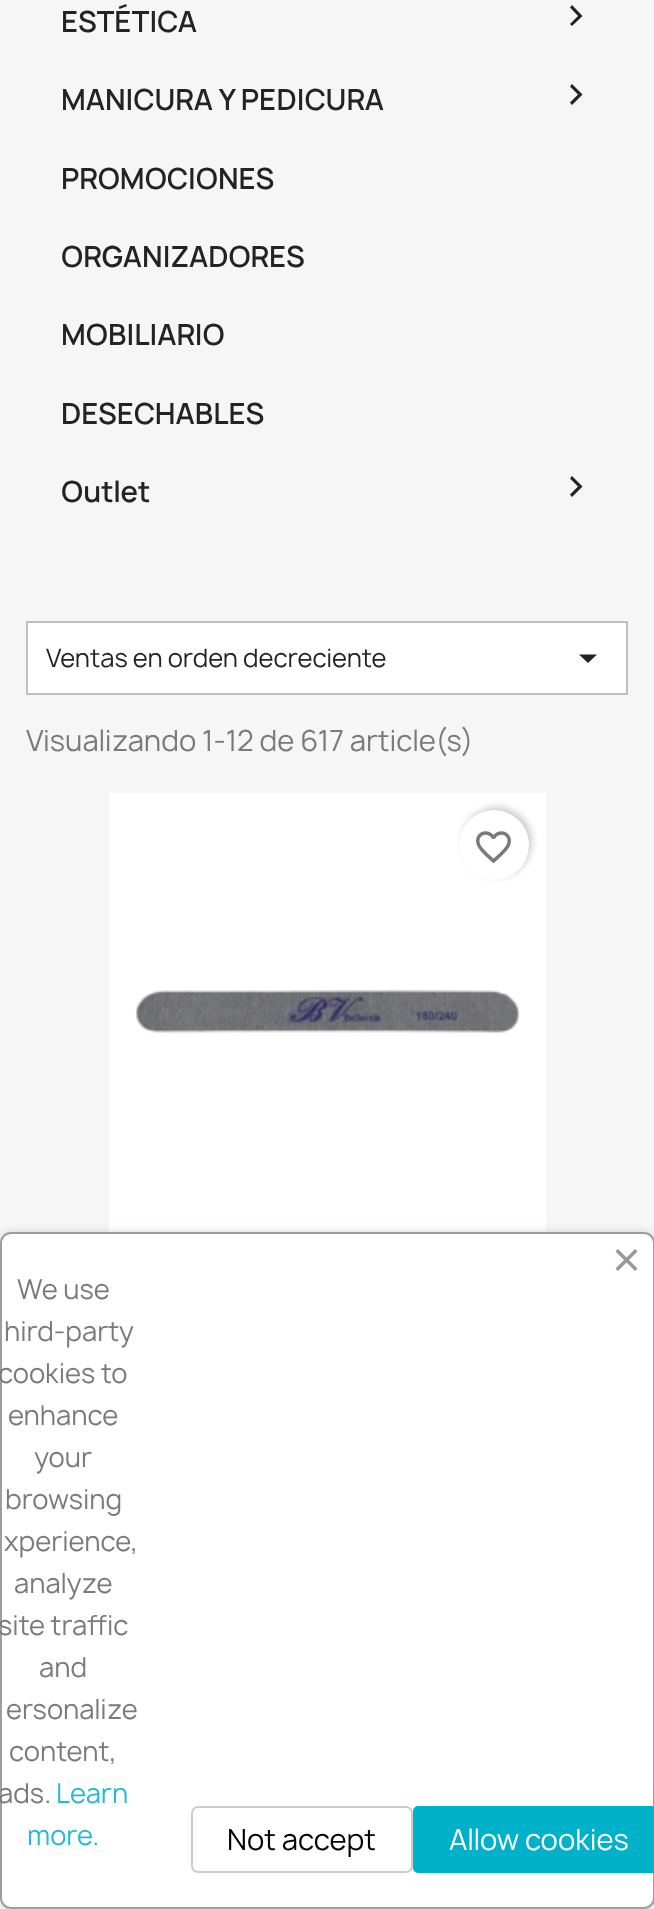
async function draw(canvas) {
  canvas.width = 654
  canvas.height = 1909
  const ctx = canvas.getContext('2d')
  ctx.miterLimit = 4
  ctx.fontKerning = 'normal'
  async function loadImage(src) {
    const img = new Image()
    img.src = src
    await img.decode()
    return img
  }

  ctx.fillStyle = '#f6f6f6'
  ctx.fillRect(0, 0, 654, 1909)
  ctx.font = '600 28px Manrope'
  ctx.fillStyle = '#232323'
  ctx.fillText('ESTÉTICA', 61, 32)
  ctx.beginPath()
  ctx.moveTo(570, 24)
  ctx.lineTo(578, 16)
  ctx.lineTo(570, 7.5)
  ctx.lineTo(572, 5)
  ctx.lineTo(582.5, 16)
  ctx.lineTo(572, 26)
  ctx.closePath()
  ctx.fill()
  ctx.fillText('MANICURA Y PEDICURA', 61, 110)
  ctx.beginPath()
  ctx.moveTo(570, 102.5)
  ctx.lineTo(578, 94.5)
  ctx.lineTo(570, 86.5)
  ctx.lineTo(572, 84)
  ctx.lineTo(582.5, 94.5)
  ctx.lineTo(572, 105)
  ctx.closePath()
  ctx.fill()
  ctx.fillText('PROMOCIONES', 61, 189)
  ctx.fillText('ORGANIZADORES', 61, 267)
  ctx.fillText('MOBILIARIO', 61, 345)
  ctx.fillText('DESECHABLES', 61, 424)
  ctx.fillText('Outlet', 61, 502)
  ctx.beginPath()
  ctx.moveTo(570, 494.5)
  ctx.lineTo(578, 486.5)
  ctx.lineTo(570, 478.5)
  ctx.lineTo(572, 476)
  ctx.lineTo(582.5, 486.5)
  ctx.lineTo(572, 497)
  ctx.closePath()
  ctx.fill()
  ctx.fillStyle = '#fff'
  ctx.beginPath()
  ctx.rect(27, 622, 600, 72)
  ctx.fill()
  ctx.strokeStyle = '#bfbfbf'
  ctx.lineWidth = 2
  ctx.stroke()
  ctx.font = '24.5px Manrope'
  ctx.fillStyle = '#232323'
  ctx.fillText('Ventas en orden decreciente', 46, 667)
  ctx.beginPath()
  ctx.moveTo(579, 654.5)
  ctx.lineTo(597, 654.5)
  ctx.lineTo(588, 663)
  ctx.closePath()
  ctx.fill()
  ctx.font = '28px Manrope'
  ctx.fillStyle = '#7a7a7a'
  ctx.fillText('Visualizando 1-12 de 617 article(s)', 26, 751)
  ctx.fillStyle = '#fff'
  ctx.fillRect(109, 793, 437, 439)
  ctx.fillStyle = '#00000033'
  ctx.filter = 'blur(3.5px)'
  ctx.beginPath()
  ctx.roundRect(462, 807, 70, 70, 35)
  ctx.fill()
  ctx.filter = 'none'
  ctx.fillStyle = '#fff'
  ctx.beginPath()
  ctx.arc(494, 845, 35, 0, 2 * Math.PI)
  ctx.fill()
  ctx.drawImage(await loadImage('image0.png'), 476, 831, 35, 33)
  ctx.drawImage(await loadImage('image1.png'), 135, 989, 385, 45)
  ctx.fillStyle = '#9e9e9e'
  ctx.filter = 'blur(6px)'
  ctx.beginPath()
  ctx.roundRect(4, 1236, 647, 670, 7)
  ctx.fill()
  ctx.filter = 'none'
  ctx.fillStyle = '#fff'
  ctx.beginPath()
  ctx.roundRect(1, 1233, 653, 675, 10)
  ctx.fill()
  ctx.strokeStyle = '#9e9e9e'
  ctx.stroke()
  ctx.fillStyle = '#999'
  ctx.beginPath()
  ctx.moveTo(615.5, 1268.5)
  ctx.lineTo(635, 1249)
  ctx.lineTo(637.5, 1251.5)
  ctx.lineTo(618, 1271)
  ctx.closePath()
  ctx.fill()
  ctx.beginPath()
  ctx.moveTo(618, 1249)
  ctx.lineTo(637.5, 1268.5)
  ctx.lineTo(635, 1271)
  ctx.lineTo(615.5, 1251.5)
  ctx.closePath()
  ctx.fill()
  ctx.font = '26.25px Manrope'
  ctx.fillStyle = '#7a7a7a'
  ctx.fillText('We use', 17, 1299)
  ctx.fillText('hird-party', 4, 1341)
  ctx.fillText('cookies to', -2, 1383)
  ctx.fillText('enhance', 8, 1425)
  ctx.fillText('your', 34, 1467)
  ctx.fillText('browsing', 5, 1509)
  ctx.fillText('xperience,', 4, 1551)
  ctx.fillText('analyze', 14, 1593)
  ctx.fillText('site traffic', -2, 1635)
  ctx.fillText('and', 39, 1677)
  ctx.fillText('ersonalize', 6, 1719)
  ctx.fillText('content,', 9, 1761)
  ctx.fillText('ads.', -2, 1803)
  ctx.fillStyle = '#24b9d7'
  ctx.fillText('Learn', 56, 1803)
  ctx.fillText('more.', 27, 1845)
  ctx.beginPath()
  ctx.roundRect(192, 1807, 220, 65, 6)
  ctx.strokeStyle = '#ccc'
  ctx.stroke()
  ctx.font = '28px Manrope'
  ctx.fillStyle = '#000'
  ctx.fillText('Not accept', 227, 1850)
  ctx.fillStyle = '#00b1c9'
  ctx.beginPath()
  ctx.roundRect(414, 1807, 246, 65, 4)
  ctx.fill()
  ctx.strokeStyle = '#00b1c9'
  ctx.stroke()
  ctx.fillStyle = '#fff'
  ctx.fillText('Allow cookies', 449, 1850)
}

draw(document.querySelector('canvas'))
